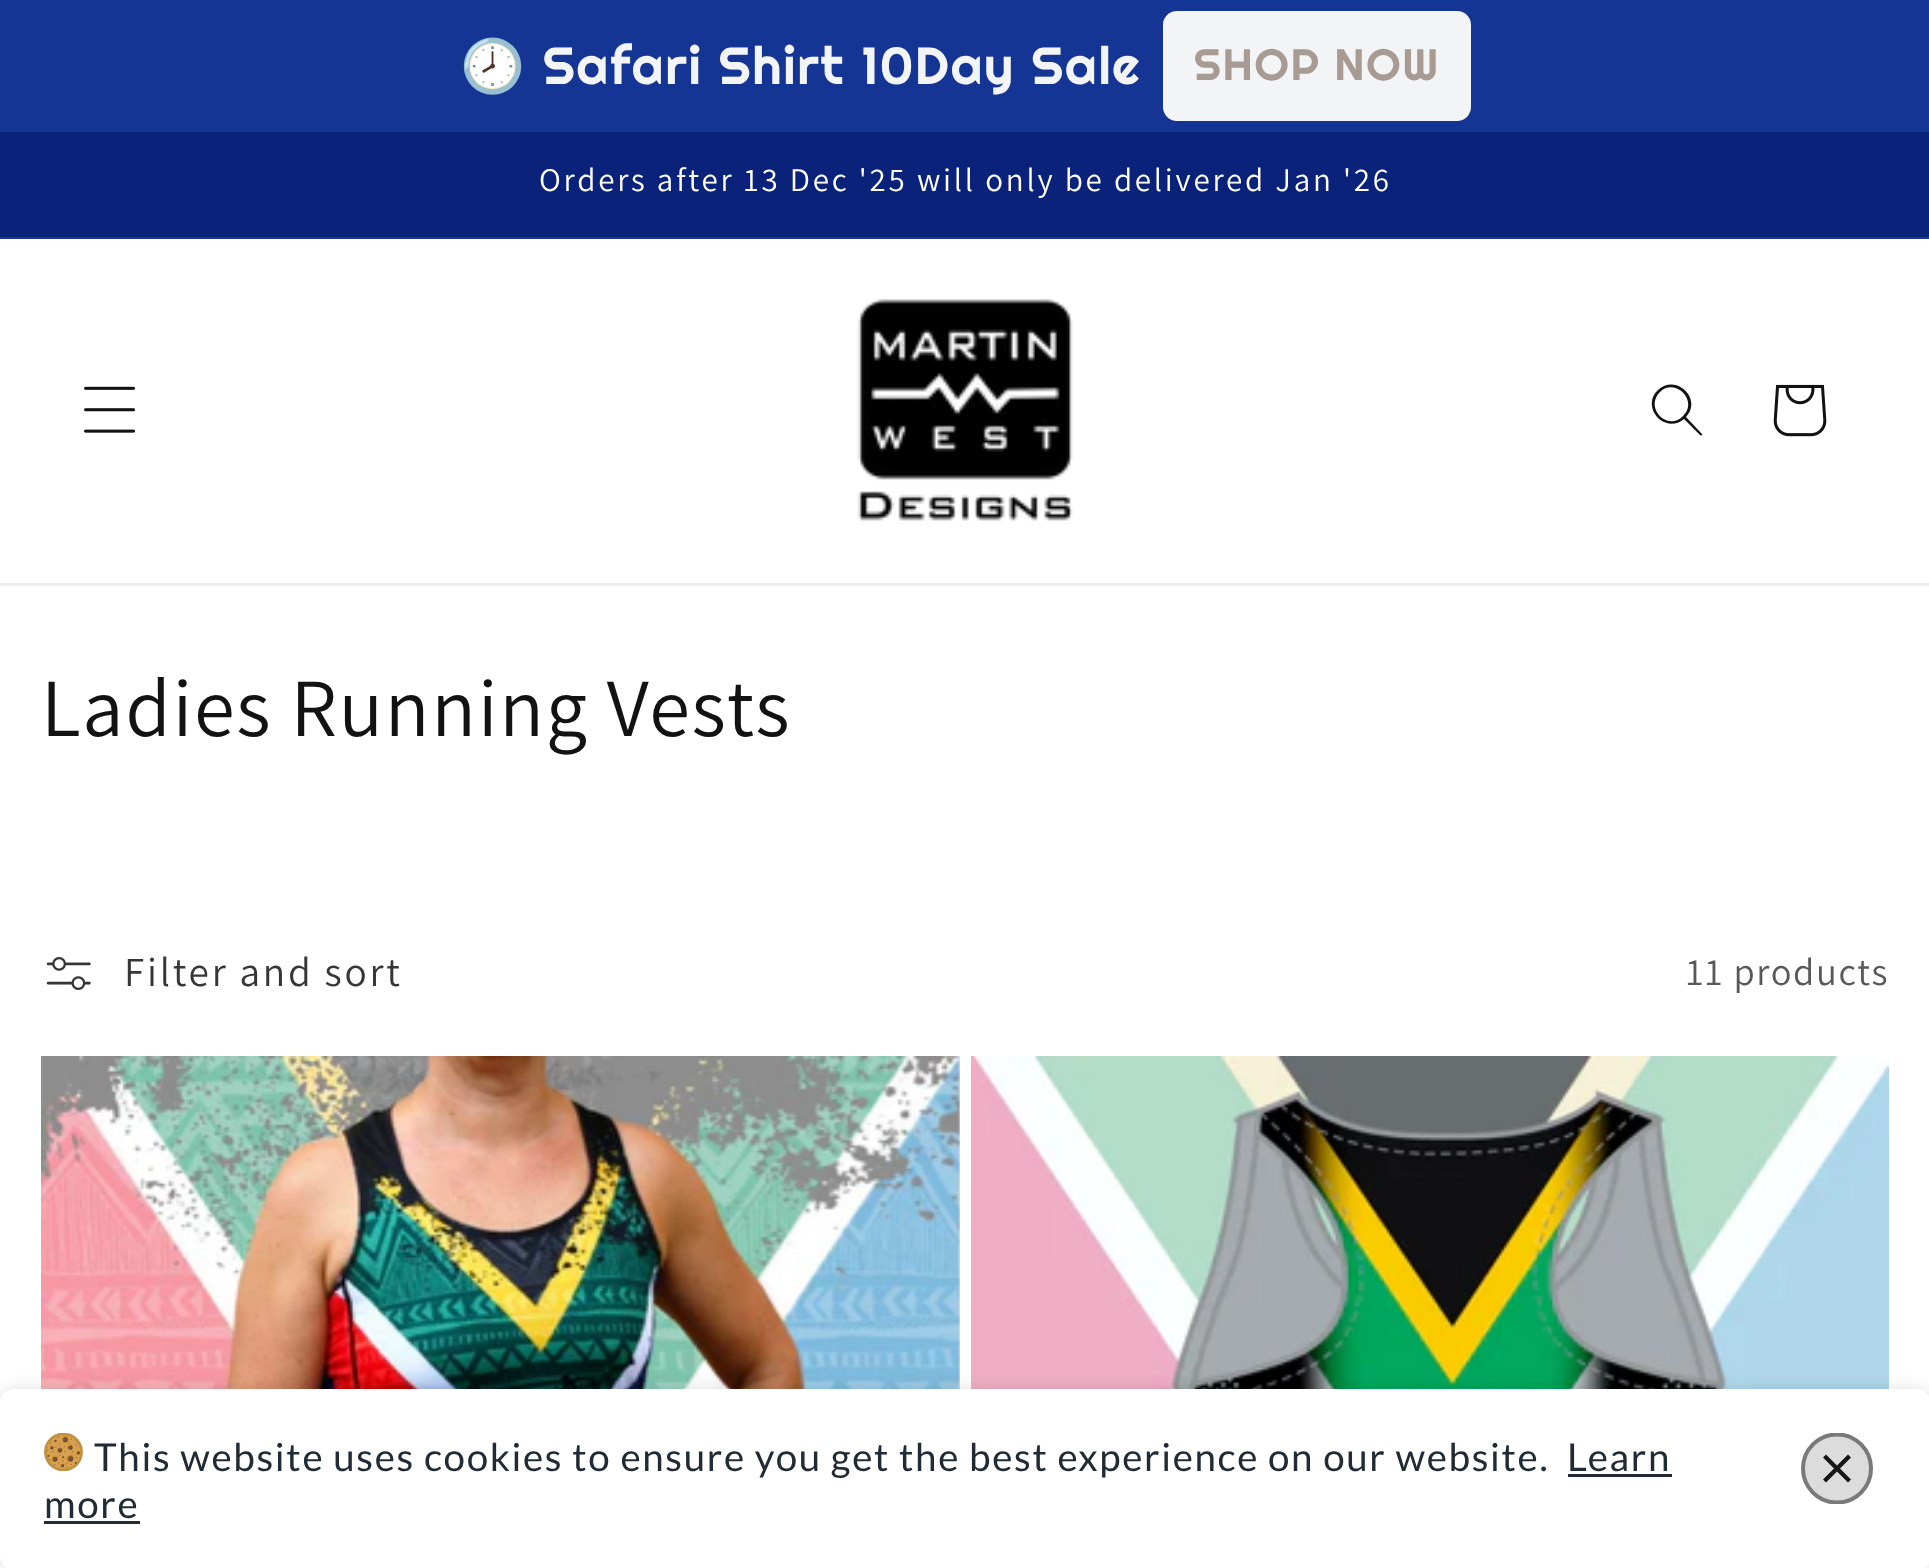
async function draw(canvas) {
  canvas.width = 1929
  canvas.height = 1568
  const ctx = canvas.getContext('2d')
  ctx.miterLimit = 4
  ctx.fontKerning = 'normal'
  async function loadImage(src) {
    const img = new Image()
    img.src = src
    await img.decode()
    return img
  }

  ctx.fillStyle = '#fff'
  ctx.fillRect(0, 0, 1929, 1568)
  ctx.fillStyle = '#153595'
  ctx.fillRect(0, 0, 1929, 132)
  ctx.letterSpacing = '1.65px'
  ctx.font = '52.25px Noto Color Emoji'
  ctx.fillStyle = '#f3f4f6'
  ctx.fillText('🕗', 460, 84)
  ctx.font = '52.25px Righteous'
  ctx.fillText('Safari Shirt 10Day Sale', 543, 84)
  ctx.beginPath()
  ctx.roundRect(1163, 11, 308, 110, 14)
  ctx.fill()
  ctx.font = '44px Righteous'
  ctx.fillStyle = '#a79b94'
  ctx.fillText('SHOP NOW', 1194, 80)
  ctx.fillStyle = '#0a227a'
  ctx.fillRect(0, 132, 1929, 105)
  ctx.fillStyle = '#1e3485'
  ctx.fillRect(0, 237, 1929, 2)
  ctx.letterSpacing = '2.75px'
  ctx.font = '33px Assistant'
  ctx.fillStyle = '#fff'
  ctx.fillText('Orders after 13 Dec \'25 will only be delivered Jan \'26', 539, 191)
  ctx.fillStyle = '#ececec'
  ctx.fillRect(0, 583, 1929, 3)
  ctx.drawImage(await loadImage('image0.png'), 84, 386, 52, 47)
  ctx.drawImage(await loadImage('image1.png'), 857, 299, 216, 222)
  ctx.fillStyle = '#121212'
  ctx.beginPath()
  ctx.moveTo(1683, 416)
  ctx.bezierCurveTo(1668, 432, 1644, 408, 1660, 392)
  ctx.bezierCurveTo(1675, 377, 1699, 401, 1683, 416)
  ctx.moveTo(1684, 419)
  ctx.bezierCurveTo(1665, 435, 1640, 407, 1658, 390)
  ctx.bezierCurveTo(1676, 373, 1703, 399, 1686, 417)
  ctx.lineTo(1702, 434)
  ctx.bezierCurveTo(1703, 435, 1701, 436, 1700, 435)
  ctx.closePath()
  ctx.fill('evenodd')
  ctx.drawImage(await loadImage('image2.png'), 1773, 384, 54, 53)
  ctx.letterSpacing = '1.65px'
  ctx.font = '82.5px Assistant'
  ctx.fillText('Ladies Running Vests', 41, 736)
  ctx.drawImage(await loadImage('image3.png'), 46, 957, 45, 33)
  ctx.letterSpacing = '2.75px'
  ctx.font = '41.25px Assistant'
  ctx.fillStyle = '#363636'
  ctx.fillText('Filter and sort', 124, 986)
  ctx.letterSpacing = '1.65px'
  ctx.font = '38.5px Assistant'
  ctx.fillStyle = '#595959'
  ctx.fillText('11 products', 1686, 985)
  ctx.fillStyle = '#f3f3f3'
  ctx.fillRect(958, 1056, 2, 333)
  ctx.drawImage(await loadImage('image4.png'), 41, 1056, 919, 333)
  ctx.drawImage(await loadImage('image5.png'), 971, 1056, 918, 333)
  ctx.save()
  ctx.beginPath()
  ctx.moveTo(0, 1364)
  ctx.lineTo(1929, 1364)
  ctx.lineTo(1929, 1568)
  ctx.lineTo(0, 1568)
  ctx.closePath()
  ctx.moveTo(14, 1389)
  ctx.lineTo(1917, 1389)
  ctx.bezierCurveTo(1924.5, 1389, 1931, 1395.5, 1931, 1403)
  ctx.lineTo(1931, 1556)
  ctx.bezierCurveTo(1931, 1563.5, 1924.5, 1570, 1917, 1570)
  ctx.lineTo(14, 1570)
  ctx.bezierCurveTo(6.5, 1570, 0, 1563.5, 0, 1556)
  ctx.lineTo(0, 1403)
  ctx.bezierCurveTo(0, 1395.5, 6.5, 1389, 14, 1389)
  ctx.closePath()
  ctx.clip('evenodd')
  ctx.fillStyle = '#0000001f'
  ctx.filter = 'blur(8px)'
  ctx.beginPath()
  ctx.roundRect(0, 1389, 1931, 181, 14)
  ctx.fill()
  ctx.filter = 'none'
  ctx.restore()
  ctx.drawImage(await loadImage('image6.png'), 44, 1433, 39, 38)
  ctx.font = '38.5px Lato'
  ctx.fillStyle = '#212b36'
  ctx.fillText('This website uses cookies to ensure you get the best experience on our website.', 94, 1471)
  ctx.fillText('Learn', 1567, 1471)
  ctx.fillRect(1568, 1474, 104, 3)
  ctx.fillText('more', 44, 1518)
  ctx.fillRect(44, 1521, 96, 3)
  ctx.save()
  ctx.beginPath()
  ctx.rect(1788, 1433, 99, 71)
  ctx.clip()
  ctx.fillStyle = '#dcdcdc'
  ctx.beginPath()
  ctx.arc(1837, 1468.5, 36, 0, 2 * Math.PI)
  ctx.fill()
  ctx.beginPath()
  ctx.arc(1837, 1468.5, 34, 0, 2 * Math.PI)
  ctx.strokeStyle = '#16161680'
  ctx.lineWidth = 4
  ctx.stroke()
  ctx.restore()
  ctx.fillStyle = '#161616'
  ctx.beginPath()
  ctx.moveTo(1851, 1457.5)
  ctx.lineTo(1848, 1454.5)
  ctx.lineTo(1837, 1465.5)
  ctx.lineTo(1826, 1454.5)
  ctx.lineTo(1823, 1457.5)
  ctx.lineTo(1834, 1468.5)
  ctx.lineTo(1823, 1479.5)
  ctx.lineTo(1826, 1482.5)
  ctx.lineTo(1837, 1471.5)
  ctx.lineTo(1848, 1482.5)
  ctx.lineTo(1851, 1479.5)
  ctx.lineTo(1840, 1468.5)
  ctx.closePath()
  ctx.fill()
}

draw(document.querySelector('canvas'))
